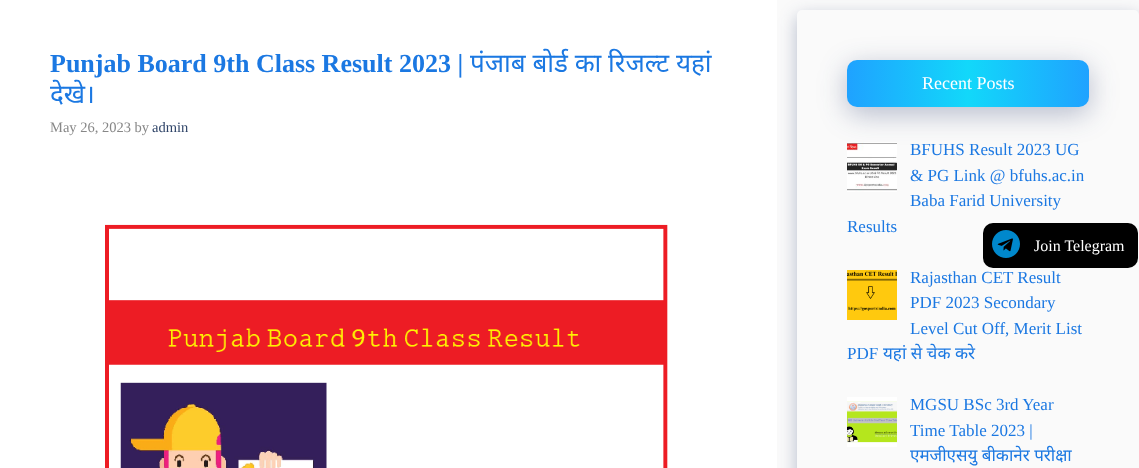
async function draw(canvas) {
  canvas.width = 1139
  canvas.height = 468
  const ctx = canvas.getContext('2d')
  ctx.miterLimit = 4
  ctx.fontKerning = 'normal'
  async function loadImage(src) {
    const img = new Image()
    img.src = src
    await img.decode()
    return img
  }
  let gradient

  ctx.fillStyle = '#fafafa'
  ctx.fillRect(0, 0, 1139, 468)
  ctx.fillStyle = '#fff'
  ctx.fillRect(0, 0, 777, 468)
  ctx.font = 'bold 26px Liberation Serif'
  ctx.fillStyle = '#1b78e2'
  ctx.fillText('Punjab Board 9th Class Result 2023 |', 50, 72)
  ctx.font = '26px Noto Sans'
  ctx.fillText('पंजाब बोर्ड का रिजल्ट यहां', 470, 72)
  ctx.fillText('देखे।', 50, 103)
  ctx.font = '14.5px Liberation Serif'
  ctx.fillStyle = '#878787'
  ctx.fillText('May 26, 2023 by', 50, 132)
  ctx.fillStyle = '#2f4468'
  ctx.fillText('admin', 152, 132)
  ctx.drawImage(await loadImage('image0.png'), 105, 224, 563, 244)
  ctx.fillStyle = '#172b634d'
  ctx.filter = 'blur(9px)'
  ctx.beginPath()
  ctx.roundRect(797, 16, 342, 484, 5)
  ctx.fill()
  ctx.filter = 'none'
  ctx.fillStyle = '#fafafa'
  ctx.beginPath()
  ctx.roundRect(797, 10, 342, 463, 5)
  ctx.fill()
  ctx.fillStyle = '#172b634d'
  ctx.filter = 'blur(14px)'
  ctx.beginPath()
  ctx.roundRect(847, 67, 242, 47, 10)
  ctx.fill()
  ctx.filter = 'none'
  gradient = ctx.createLinearGradient(847, 84, 1089, 83)
  gradient.addColorStop(0, '#1fa2ff')
  gradient.addColorStop(0.5, '#12d8fa')
  gradient.addColorStop(1, '#1fa2ff')
  ctx.fillStyle = gradient
  ctx.beginPath()
  ctx.roundRect(847, 60, 242, 47, 10)
  ctx.fill()
  ctx.font = '18px Liberation Serif'
  ctx.fillStyle = '#fff'
  ctx.fillText('Recent Posts', 922, 89)
  ctx.drawImage(await loadImage('image1.png'), 847, 142, 50, 50)
  ctx.font = '17px Liberation Serif'
  ctx.fillStyle = '#1b78e2'
  ctx.fillText('BFUHS Result 2023 UG', 910, 155)
  ctx.fillText('& PG Link @ bfuhs.ac.in', 910, 181)
  ctx.fillText('Baba Farid University', 910, 206)
  ctx.fillText('Results', 847, 232)
  ctx.drawImage(await loadImage('image2.png'), 847, 270, 50, 50)
  ctx.fillText('Rajasthan CET Result', 910, 283)
  ctx.fillText('PDF 2023 Secondary', 910, 308)
  ctx.fillText('Level Cut Off, Merit List', 910, 334)
  ctx.fillText('PDF', 847, 359)
  ctx.font = '17px Noto Sans'
  ctx.fillText('यहां से चेक करे', 883, 359)
  ctx.drawImage(await loadImage('image3.png'), 847, 397, 50, 50)
  ctx.font = '17px Liberation Serif'
  ctx.fillText('MGSU BSc 3rd Year', 910, 410)
  ctx.fillText('Time Table 2023 |', 910, 436)
  ctx.font = '17px Noto Sans'
  ctx.fillText('एमजीएसयु बीकानेर परीक्षा', 910, 461)
  ctx.fillStyle = '#000'
  ctx.beginPath()
  ctx.roundRect(983, 223, 45, 45, [10, 0, 0, 10])
  ctx.fill()
  ctx.drawImage(await loadImage('image4.png'), 992, 230, 28, 28)
  ctx.beginPath()
  ctx.roundRect(1028, 223, 110, 45, [0, 10, 10, 0])
  ctx.fill()
  ctx.font = '16px Liberation Serif'
  ctx.fillStyle = '#fff'
  ctx.fillText('Join Telegram', 1034, 251)
}

draw(document.querySelector('canvas'))
